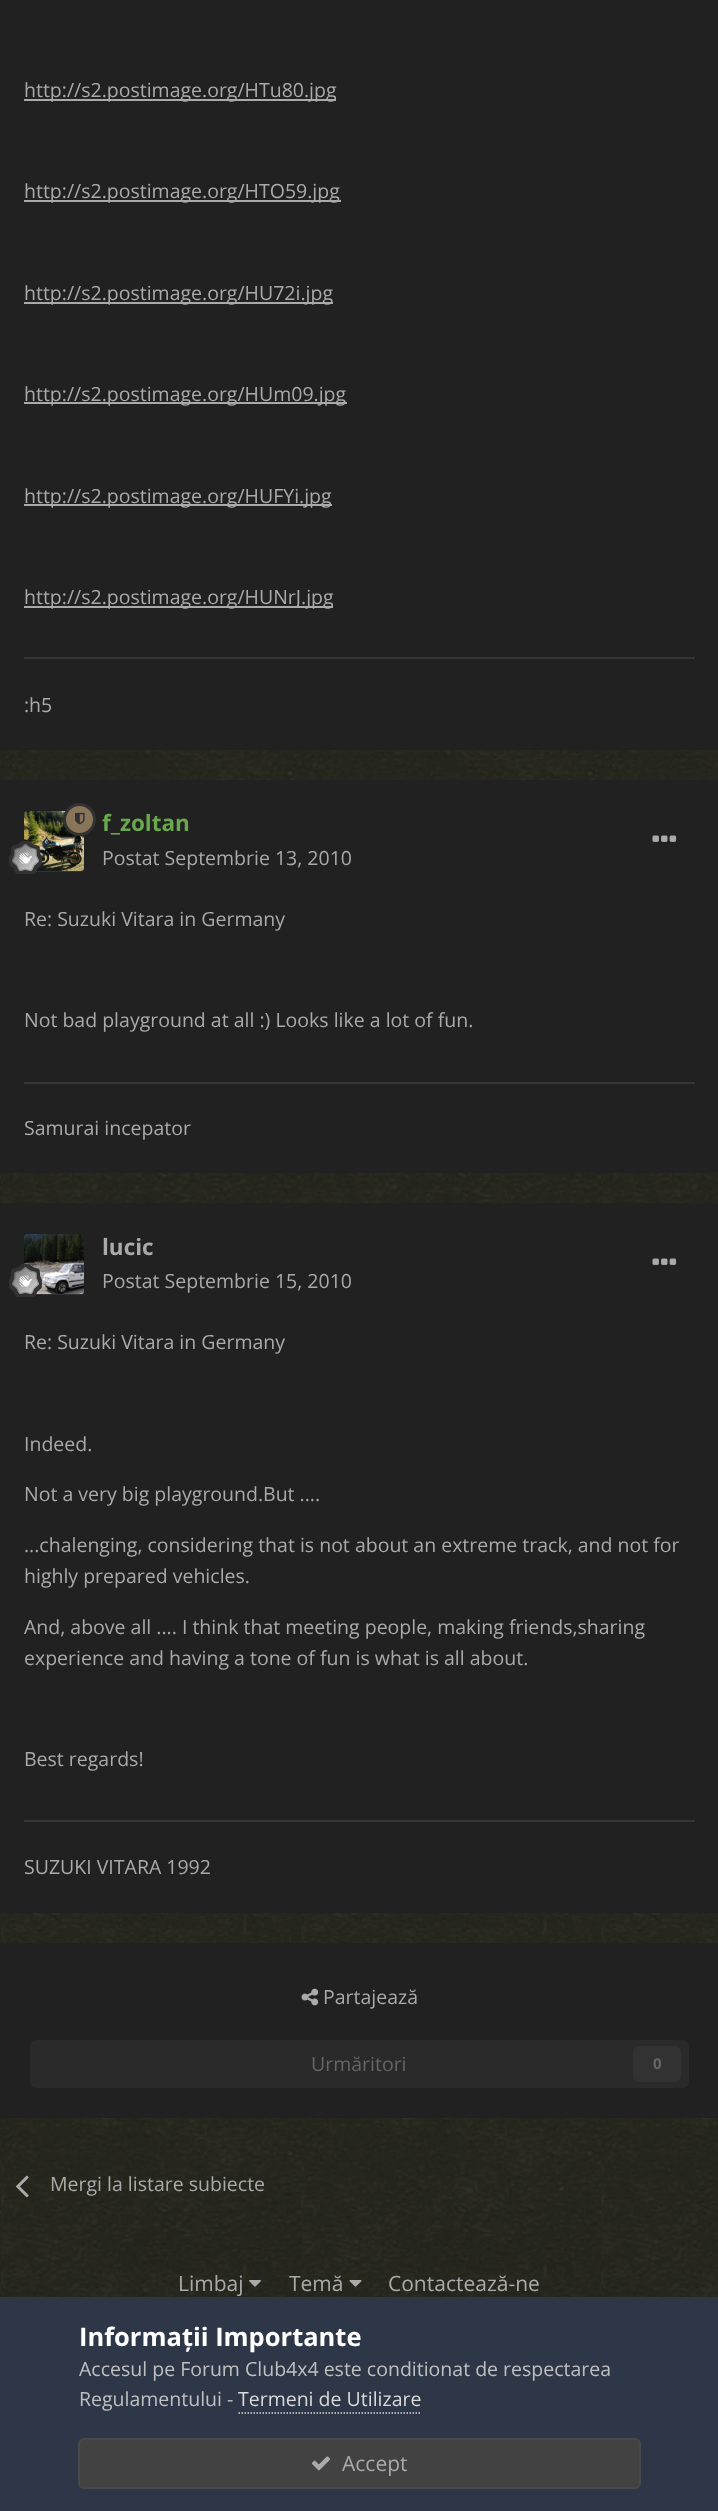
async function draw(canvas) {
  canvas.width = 718
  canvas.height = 2511
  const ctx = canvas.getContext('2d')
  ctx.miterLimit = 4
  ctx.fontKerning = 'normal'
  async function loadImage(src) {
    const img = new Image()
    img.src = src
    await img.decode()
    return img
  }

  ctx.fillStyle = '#fff'
  ctx.fillRect(0, 0, 718, 2511)
  ctx.drawImage(await loadImage('image0.png'), 0, 750, 718, 1547)
  ctx.fillStyle = '#2d37481a'
  ctx.filter = 'blur(3px)'
  ctx.beginPath()
  ctx.rect(2, -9, 715, 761)
  ctx.fill()
  ctx.filter = 'none'
  ctx.fillStyle = '#212121'
  ctx.fillRect(0, 0, 718, 750)
  ctx.fillStyle = '#aaa'
  ctx.fillRect(24, 99, 312, 2)
  ctx.font = '19.5px Open Sans'
  ctx.fillText('http://s2.postimage.org/HTu80.jpg', 24, 97)
  ctx.fillRect(24, 200, 317, 2)
  ctx.fillText('http://s2.postimage.org/HTO59.jpg', 24, 198)
  ctx.fillRect(24, 302, 309, 2)
  ctx.fillText('http://s2.postimage.org/HU72i.jpg', 24, 300)
  ctx.fillRect(24, 402, 323, 2)
  ctx.fillText('http://s2.postimage.org/HUm09.jpg', 24, 401)
  ctx.fillRect(24, 504, 308, 2)
  ctx.fillText('http://s2.postimage.org/HUFYi.jpg', 24, 503)
  ctx.fillRect(24, 606, 309, 2)
  ctx.fillText('http://s2.postimage.org/HUNrJ.jpg', 24, 604)
  ctx.fillStyle = '#363636'
  ctx.fillRect(24, 657, 671, 2)
  ctx.fillStyle = '#aaa'
  ctx.fillText(':h5', 24, 712)
  ctx.fillStyle = '#212121'
  ctx.fillRect(0, 780, 718, 393)
  ctx.fillStyle = '#323232'
  ctx.beginPath()
  ctx.roundRect(24, 812, 60, 60, 3)
  ctx.fill()
  ctx.drawImage(await loadImage('image2.png'), 24, 811, 60, 60)
  ctx.fillStyle = '#88755a'
  ctx.beginPath()
  ctx.arc(79.5, 819.5, 15, 0, 2 * Math.PI)
  ctx.fill()
  ctx.strokeStyle = '#323232'
  ctx.lineWidth = 3
  ctx.stroke()
  ctx.drawImage(await loadImage('image1.png'), 75, 812, 10, 13)
  ctx.drawImage(await loadImage('image3.png'), 9, 841, 33, 33)
  ctx.font = 'bold 22.5px Open Sans'
  ctx.fillStyle = '#6aa84f'
  ctx.fillText('f_zoltan', 102, 831)
  ctx.font = '19.5px Open Sans'
  ctx.fillStyle = '#aaa'
  ctx.fillText('Postat Septembrie 13, 2010', 102, 865)
  ctx.drawImage(await loadImage('image4.png'), 652, 835, 25, 7)
  ctx.fillText('Re: Suzuki Vitara in Germany', 24, 926)
  ctx.fillText('Not bad playground at all :) Looks like a lot of fun.', 24, 1027)
  ctx.fillStyle = '#363636'
  ctx.fillRect(24, 1082, 671, 2)
  ctx.fillStyle = '#aaa'
  ctx.fillText('Samurai incepator', 24, 1135)
  ctx.fillStyle = '#212121'
  ctx.fillRect(0, 1203, 718, 710)
  ctx.fillStyle = '#323232'
  ctx.beginPath()
  ctx.roundRect(24, 1235, 60, 60, 3)
  ctx.fill()
  ctx.drawImage(await loadImage('image5.png'), 24, 1234, 60, 60)
  ctx.drawImage(await loadImage('image6.png'), 9, 1264, 33, 33)
  ctx.font = 'bold 22.5px Open Sans'
  ctx.fillStyle = '#aaa'
  ctx.fillText('lucic', 102, 1255)
  ctx.font = '19.5px Open Sans'
  ctx.fillText('Postat Septembrie 15, 2010', 102, 1288)
  ctx.drawImage(await loadImage('image4.png'), 652, 1258, 25, 7)
  ctx.fillText('Re: Suzuki Vitara in Germany', 24, 1349)
  ctx.fillText('Indeed.', 24, 1451)
  ctx.fillText('Not a very big playground.But ....', 24, 1501)
  ctx.fillText('...chalenging, considering that is not about an extreme track, and not for', 24, 1552)
  ctx.fillText('highly prepared vehicles.', 24, 1583)
  ctx.fillText('And, above all .... I think that meeting people, making friends,sharing', 24, 1634)
  ctx.fillText('experience and having a tone of fun is what is all about.', 24, 1665)
  ctx.fillText('Best regards!', 24, 1766)
  ctx.fillStyle = '#363636'
  ctx.fillRect(24, 1820, 671, 2)
  ctx.fillStyle = '#aaa'
  ctx.fillText('SUZUKI VITARA 1992', 24, 1874)
  ctx.fillStyle = '#212121'
  ctx.fillRect(0, 1943, 718, 175)
  ctx.drawImage(await loadImage('image7.png'), 301, 1988, 18, 18)
  ctx.fillStyle = '#aaa'
  ctx.fillText('Partajează', 323, 2004)
  ctx.fillStyle = '#2a2a2a'
  ctx.beginPath()
  ctx.roundRect(30, 2040, 659, 48, 6)
  ctx.fill()
  ctx.fillStyle = '#666'
  ctx.fillText('Urmăritori', 311, 2071)
  ctx.fillStyle = '#323232'
  ctx.beginPath()
  ctx.roundRect(633, 2046, 48, 36, 6)
  ctx.fill()
  ctx.font = 'bold 15px Open Sans'
  ctx.fillStyle = '#666'
  ctx.fillText('0', 653, 2069)
  ctx.drawImage(await loadImage('image8.png'), 16, 2175, 13, 23)
  ctx.font = '19.5px Open Sans'
  ctx.fillStyle = '#aaa'
  ctx.fillText('Mergi la listare subiecte', 50, 2191)
  ctx.font = '21px Open Sans'
  ctx.fillText('Limbaj', 178, 2291)
  ctx.drawImage(await loadImage('image9.png'), 249, 2280, 12, 7)
  ctx.fillText('Temă', 289, 2291)
  ctx.drawImage(await loadImage('image10.png'), 349, 2280, 13, 7)
  ctx.fillText('Contactează-ne', 388, 2291)
  ctx.fillStyle = '#2d3748'
  ctx.fillRect(0, 2297, 718, 214)
  ctx.font = 'bold 25.5px Open Sans'
  ctx.fillStyle = '#fff'
  ctx.fillText('Informații Importante', 79, 2346)
  ctx.font = '19.5px Open Sans'
  ctx.fillStyle = '#c0c0c0'
  ctx.fillText('Accesul pe Forum Club4x4 este conditionat de respectarea', 79, 2376)
  ctx.fillText('Regulamentului -', 79, 2406)
  ctx.fillStyle = '#dadada'
  ctx.fillText('Termeni de Utilizare', 238, 2406)
  ctx.beginPath()
  ctx.moveTo(238.5, 2413)
  ctx.lineTo(421.5, 2413)
  ctx.strokeStyle = '#dadada'
  ctx.lineWidth = 1.5
  ctx.setLineDash([1.5, 1.5])
  ctx.stroke()
  ctx.fillStyle = '#424242'
  ctx.beginPath()
  ctx.roundRect(78, 2438, 563, 51, 6)
  ctx.fill()
  ctx.beginPath()
  ctx.roundRect(79, 2439, 561, 49, 5)
  ctx.strokeStyle = '#aaaaaa12'
  ctx.lineWidth = 2
  ctx.setLineDash([])
  ctx.stroke()
  ctx.drawImage(await loadImage('image11.png'), 312, 2456, 18, 15)
  ctx.font = '21px Open Sans'
  ctx.fillStyle = '#aaa'
  ctx.fillText('Accept', 342, 2471)
}

draw(document.querySelector('canvas'))
